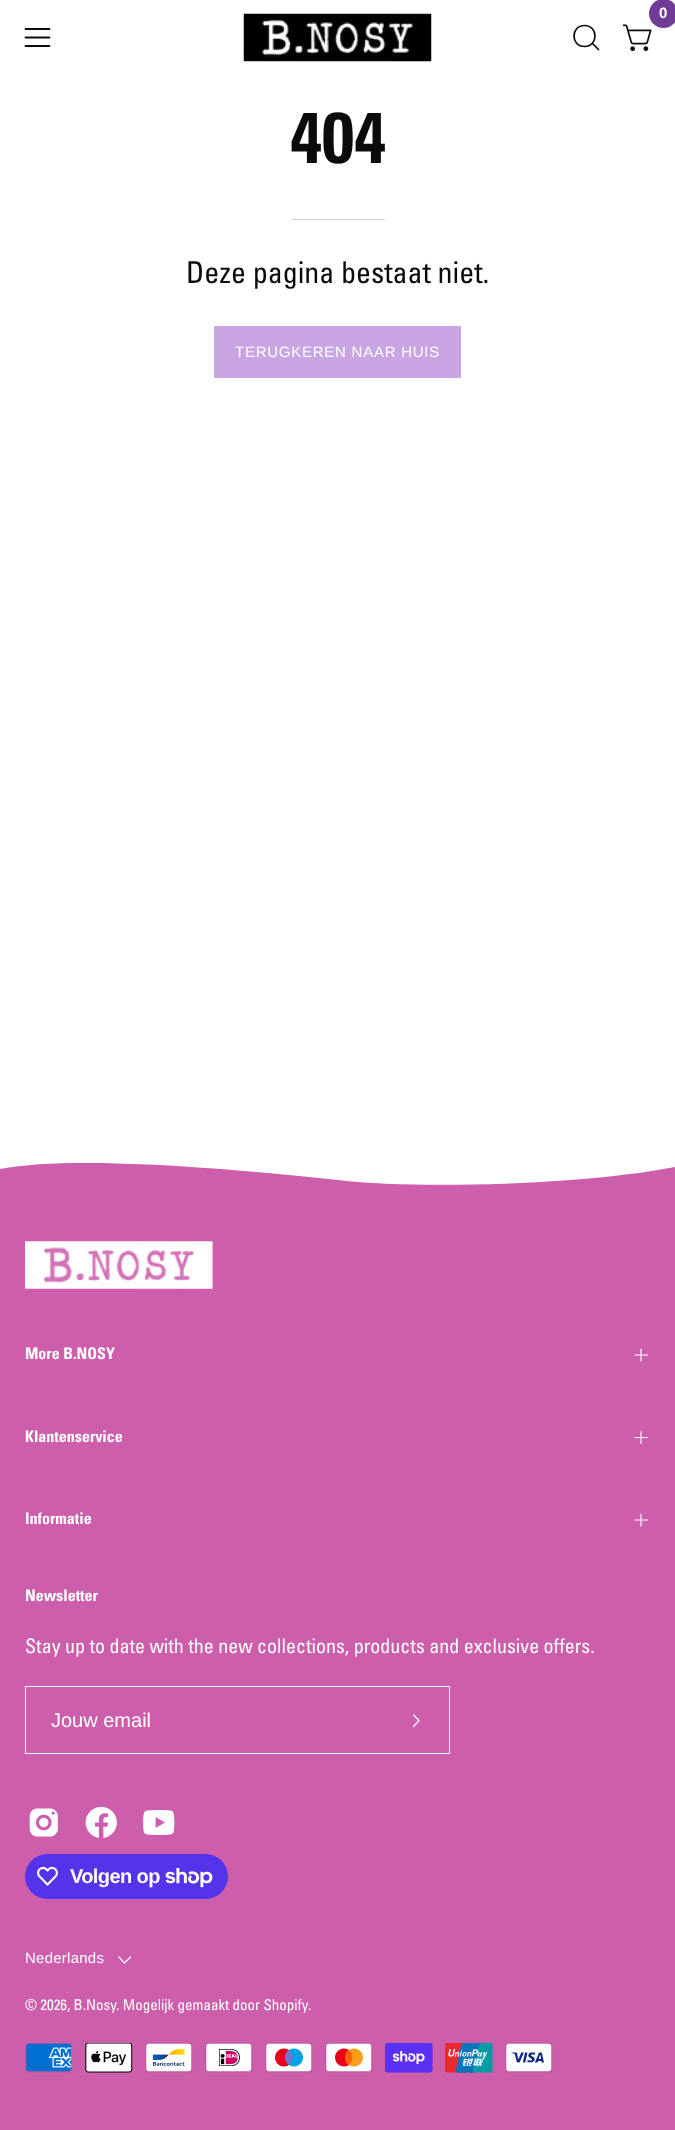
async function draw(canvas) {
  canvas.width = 675
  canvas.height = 2130
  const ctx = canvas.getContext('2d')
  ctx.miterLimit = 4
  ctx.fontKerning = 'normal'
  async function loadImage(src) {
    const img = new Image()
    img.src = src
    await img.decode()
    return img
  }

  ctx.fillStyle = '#fff'
  ctx.fillRect(0, 0, 675, 2130)
  ctx.beginPath()
  ctx.moveTo(25.5, 37.5)
  ctx.lineTo(49.5, 37.5)
  ctx.moveTo(25.5, 29)
  ctx.lineTo(49.5, 29)
  ctx.moveTo(25.5, 46)
  ctx.lineTo(49.5, 46)
  ctx.strokeStyle = '#0b0b0b'
  ctx.lineWidth = 1.8
  ctx.lineCap = 'round'
  ctx.lineJoin = 'round'
  ctx.stroke()
  ctx.drawImage(await loadImage('image0.png'), 243, 13, 189, 49)
  ctx.drawImage(await loadImage('image1.png'), 623, 24, 29, 27)
  ctx.fillStyle = '#703b96'
  ctx.beginPath()
  ctx.arc(663.5, 13.5, 14.5, 0, 2 * Math.PI)
  ctx.fill()
  ctx.font = 'bold 15px Liberation Sans'
  ctx.fillStyle = '#fff'
  ctx.fillText('0', 659, 18)
  ctx.beginPath()
  ctx.moveTo(584.5, 46.5)
  ctx.bezierCurveTo(598.5, 46.5, 598.5, 25.5, 584.5, 25.5)
  ctx.bezierCurveTo(570.5, 25.5, 570.5, 46.5, 584.5, 46.5)
  ctx.closePath()
  ctx.moveTo(592.5, 43.5)
  ctx.lineTo(598.5, 49.5)
  ctx.lineWidth = 1.7
  ctx.stroke()
  ctx.font = 'bold 72px "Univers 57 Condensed"'
  ctx.fillStyle = '#0b0b0b'
  ctx.fillText('404', 290, 163)
  ctx.fillStyle = '#d3d3d3'
  ctx.fillRect(291, 219, 94, 1)
  ctx.font = '500 30px "Univers 57 Condensed"'
  ctx.fillStyle = '#0b0b0b'
  ctx.fillText('Deze pagina bestaat niet.', 186, 283)
  ctx.fillStyle = '#caa5e4'
  ctx.fillRect(214, 326, 247, 52)
  ctx.letterSpacing = '0.75px'
  ctx.font = '15px Liberation Sans'
  ctx.fillStyle = '#fff'
  ctx.fillText('TERUGKEREN NAAR HUIS', 235, 357)
  ctx.fillStyle = '#cd5eac'
  ctx.fillRect(0, 1198, 675, 932)
  ctx.beginPath()
  ctx.moveTo(0, 1169)
  ctx.bezierCurveTo(77, 1155, 231, 1169, 338, 1180)
  ctx.bezierCurveTo(424, 1190, 588, 1184, 675, 1167)
  ctx.lineTo(675, 1198)
  ctx.lineTo(0, 1198)
  ctx.fill()
  ctx.fillStyle = '#d371b6'
  ctx.fillRect(25, 1241, 188, 48)
  ctx.drawImage(await loadImage('image2.png'), 25, 1241, 188, 48)
  ctx.letterSpacing = '0px'
  ctx.font = 'bold 16px "Univers 57 Condensed"'
  ctx.fillStyle = '#fff'
  ctx.fillText('More B.NOSY', 25, 1359)
  ctx.beginPath()
  ctx.moveTo(635, 1355)
  ctx.lineTo(647.5, 1355)
  ctx.moveTo(641, 1349)
  ctx.lineTo(641, 1361)
  ctx.strokeStyle = '#fff'
  ctx.lineWidth = 1.1
  ctx.stroke()
  ctx.fillText('Klantenservice', 25, 1442)
  ctx.beginPath()
  ctx.moveTo(635, 1437.5)
  ctx.lineTo(647.5, 1437.5)
  ctx.moveTo(641, 1431.5)
  ctx.lineTo(641, 1443.5)
  ctx.stroke()
  ctx.fillText('Informatie', 25, 1524)
  ctx.beginPath()
  ctx.moveTo(635, 1520)
  ctx.lineTo(647.5, 1520)
  ctx.moveTo(641, 1514)
  ctx.lineTo(641, 1526)
  ctx.stroke()
  ctx.fillText('Newsletter', 25, 1601)
  ctx.font = '500 20px "Univers 57 Condensed"'
  ctx.fillText('Stay up to date with the new collections, products and exclusive offers.', 25, 1653)
  ctx.fillRect(25, 1686, 425, 1)
  ctx.fillRect(25, 1753, 358, 1)
  ctx.fillRect(25, 1686, 1, 68)
  ctx.font = '20px Liberation Sans'
  ctx.fillText('Jouw email', 51, 1727)
  ctx.fillRect(449, 1686, 1, 68)
  ctx.fillRect(383, 1753, 67, 1)
  ctx.beginPath()
  ctx.moveTo(413.5, 1715)
  ctx.lineTo(419, 1720.5)
  ctx.lineTo(413.5, 1726.5)
  ctx.lineWidth = 1.2
  ctx.stroke()
  ctx.drawImage(await loadImage('image3.png'), 29, 1808, 29, 29)
  ctx.drawImage(await loadImage('image4.png'), 85, 1806, 32, 32)
  ctx.drawImage(await loadImage('image5.png'), 143, 1810, 32, 25)
  ctx.fillStyle = '#5433eb'
  ctx.beginPath()
  ctx.roundRect(25, 1854, 203, 45, 22.5)
  ctx.fill()
  ctx.drawImage(await loadImage('image6.png'), 37, 1866, 21, 20)
  ctx.letterSpacing = '-0.6px'
  ctx.font = 'bold 20px Liberation Sans'
  ctx.fillStyle = '#fff'
  ctx.fillText('Volgen op', 70, 1883)
  ctx.drawImage(await loadImage('image7.png'), 165, 1868, 48, 20)
  ctx.letterSpacing = '0.25px'
  ctx.font = '15px Liberation Sans'
  ctx.fillText('Nederlands', 25, 1963)
  ctx.beginPath()
  ctx.moveTo(130.5, 1957)
  ctx.lineTo(124.5, 1963)
  ctx.lineTo(119, 1957)
  ctx.stroke()
  ctx.letterSpacing = '0px'
  ctx.font = '500 15px "Univers 57 Condensed"'
  ctx.fillText('© 2026, B.Nosy', 25, 2010)
  ctx.fillText('. Mogelijk gemaakt door Shopify', 116, 2010)
  ctx.fillText('.', 308, 2010)
  ctx.drawImage(await loadImage('image8.png'), 25, 2043, 48, 30)
  ctx.drawImage(await loadImage('image9.png'), 85, 2043, 48, 30)
  ctx.drawImage(await loadImage('image10.png'), 145, 2043, 48, 30)
  ctx.drawImage(await loadImage('image11.png'), 205, 2043, 48, 30)
  ctx.drawImage(await loadImage('image12.png'), 265, 2043, 48, 30)
  ctx.drawImage(await loadImage('image13.png'), 325, 2043, 48, 30)
  ctx.drawImage(await loadImage('image14.png'), 385, 2043, 48, 30)
  ctx.drawImage(await loadImage('image15.png'), 445, 2043, 48, 30)
  ctx.drawImage(await loadImage('image16.png'), 505, 2043, 48, 30)
}

draw(document.querySelector('canvas'))
